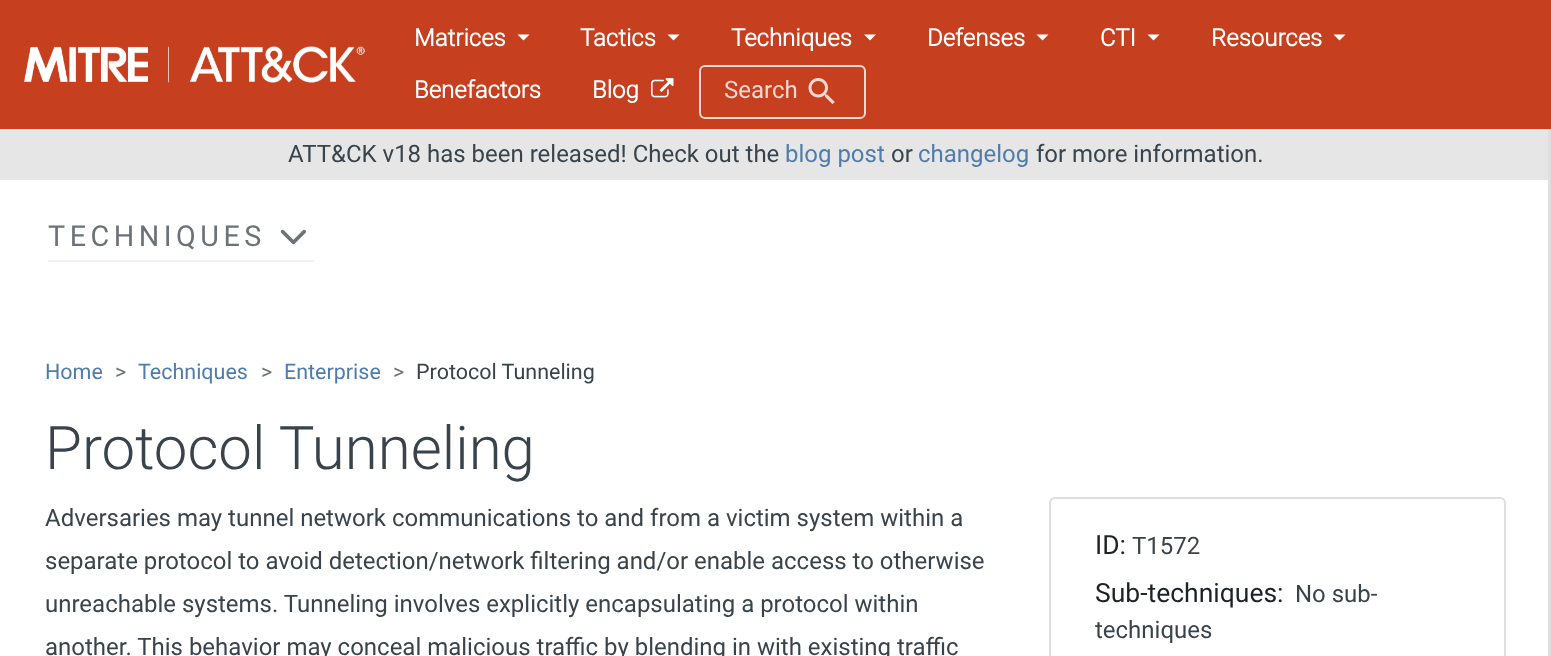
async function draw(canvas) {
  canvas.width = 1551
  canvas.height = 656
  const ctx = canvas.getContext('2d')
  ctx.miterLimit = 4
  ctx.fontKerning = 'normal'
  async function loadImage(src) {
    const img = new Image()
    img.src = src
    await img.decode()
    return img
  }

  ctx.fillStyle = '#fff'
  ctx.fillRect(0, 0, 1551, 656)
  ctx.fillStyle = '#c63f1f'
  ctx.fillRect(0, 0, 1551, 129)
  ctx.drawImage(await loadImage('image0.png'), 24, 46, 341, 37)
  ctx.font = 'bold 24px Roboto'
  ctx.fillStyle = '#fff'
  ctx.fillText('Matrices', 414, 46)
  ctx.beginPath()
  ctx.moveTo(517.5, 34.5)
  ctx.lineTo(529.5, 34.5)
  ctx.lineTo(523.5, 40.5)
  ctx.closePath()
  ctx.fill()
  ctx.fillText('Tactics', 580, 46)
  ctx.beginPath()
  ctx.moveTo(667.5, 34.5)
  ctx.lineTo(679.5, 34.5)
  ctx.lineTo(673.5, 40.5)
  ctx.closePath()
  ctx.fill()
  ctx.fillText('Techniques', 731, 46)
  ctx.beginPath()
  ctx.moveTo(864, 34.5)
  ctx.lineTo(876, 34.5)
  ctx.lineTo(870, 40.5)
  ctx.closePath()
  ctx.fill()
  ctx.fillText('Defenses', 927, 46)
  ctx.beginPath()
  ctx.moveTo(1036.5, 34.5)
  ctx.lineTo(1048.5, 34.5)
  ctx.lineTo(1042.5, 40.5)
  ctx.closePath()
  ctx.fill()
  ctx.fillText('CTI', 1100, 46)
  ctx.beginPath()
  ctx.moveTo(1147.5, 34.5)
  ctx.lineTo(1159.5, 34.5)
  ctx.lineTo(1153.5, 40.5)
  ctx.closePath()
  ctx.fill()
  ctx.fillText('Resources', 1211, 46)
  ctx.beginPath()
  ctx.moveTo(1333.5, 34.5)
  ctx.lineTo(1345.5, 34.5)
  ctx.lineTo(1339.5, 40.5)
  ctx.closePath()
  ctx.fill()
  ctx.fillText('Benefactors', 414, 98)
  ctx.fillText('Blog', 592, 98)
  ctx.drawImage(await loadImage('image1.png'), 651, 78, 23, 20)
  ctx.beginPath()
  ctx.roundRect(700, 66, 165, 52, 5)
  ctx.strokeStyle = '#f4d9d2'
  ctx.lineWidth = 2
  ctx.stroke()
  ctx.font = '24px Roboto'
  ctx.fillStyle = '#f4d9d2'
  ctx.fillText('Search', 724, 98)
  ctx.drawImage(await loadImage('image2.png'), 808, 78, 27, 27)
  ctx.fillStyle = '#e6e6e6'
  ctx.fillRect(0, 129, 1548, 51)
  ctx.fillStyle = '#39434c'
  ctx.fillText('ATT&CK v18 has been released! Check out the', 288, 162)
  ctx.fillStyle = '#4f7cac'
  ctx.fillText('blog post', 785, 162)
  ctx.fillStyle = '#39434c'
  ctx.fillText('or', 891, 162)
  ctx.fillStyle = '#4f7cac'
  ctx.fillText('changelog', 918, 162)
  ctx.fillStyle = '#39434c'
  ctx.fillText('for more information.', 1036, 162)
  ctx.fillStyle = '#f2f2f2'
  ctx.fillRect(48, 260, 266, 2)
  ctx.letterSpacing = '4.5px'
  ctx.font = '28.75px Roboto'
  ctx.fillStyle = '#6b7279'
  ctx.fillText('TECHNIQUES', 48, 246)
  ctx.drawImage(await loadImage('image3.png'), 280, 229, 26, 16)
  ctx.fillStyle = '#dfdfdf'
  ctx.fillRect(1548, 129, 3, 527)
  ctx.letterSpacing = '0px'
  ctx.font = '21.5px Roboto'
  ctx.fillStyle = '#4f7cac'
  ctx.fillText('Home', 45, 379)
  ctx.fillStyle = '#6b7279'
  ctx.fillText('>', 115, 379)
  ctx.fillStyle = '#4f7cac'
  ctx.fillText('Techniques', 138, 379)
  ctx.fillStyle = '#6b7279'
  ctx.fillText('>', 261, 379)
  ctx.fillStyle = '#4f7cac'
  ctx.fillText('Enterprise', 284, 379)
  ctx.fillStyle = '#6b7279'
  ctx.fillText('>', 393, 379)
  ctx.fillStyle = '#39434c'
  ctx.fillText('Protocol Tunneling', 416, 379)
  ctx.font = '300 60px Roboto'
  ctx.fillText('Protocol Tunneling', 45, 469)
  ctx.font = '24px Roboto'
  ctx.fillText('Adversaries may tunnel network communications to and from a victim system within a', 45, 526)
  ctx.fillText('separate protocol to avoid detection/network filtering and/or enable access to otherwise', 45, 569)
  ctx.fillText('unreachable systems. Tunneling involves explicitly encapsulating a protocol within', 45, 612)
  ctx.fillText('another. This behavior may conceal malicious traffic by blending in with existing traffic', 45, 655)
  ctx.beginPath()
  ctx.roundRect(1050, 498, 455, 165, 5)
  ctx.strokeStyle = '#dfdfdf'
  ctx.stroke()
  ctx.font = '26.5px Roboto'
  ctx.fillStyle = '#1d2226'
  ctx.fillText('ID:', 1095, 554)
  ctx.font = '24px Roboto'
  ctx.fillStyle = '#39434c'
  ctx.fillText('T1572', 1132, 554)
  ctx.font = '26.5px Roboto'
  ctx.fillStyle = '#1d2226'
  ctx.fillText('Sub-techniques:', 1095, 602)
  ctx.font = '24px Roboto'
  ctx.fillStyle = '#39434c'
  ctx.fillText('No sub-', 1295, 602)
  ctx.fillText('techniques', 1095, 638)
}

draw(document.querySelector('canvas'))
